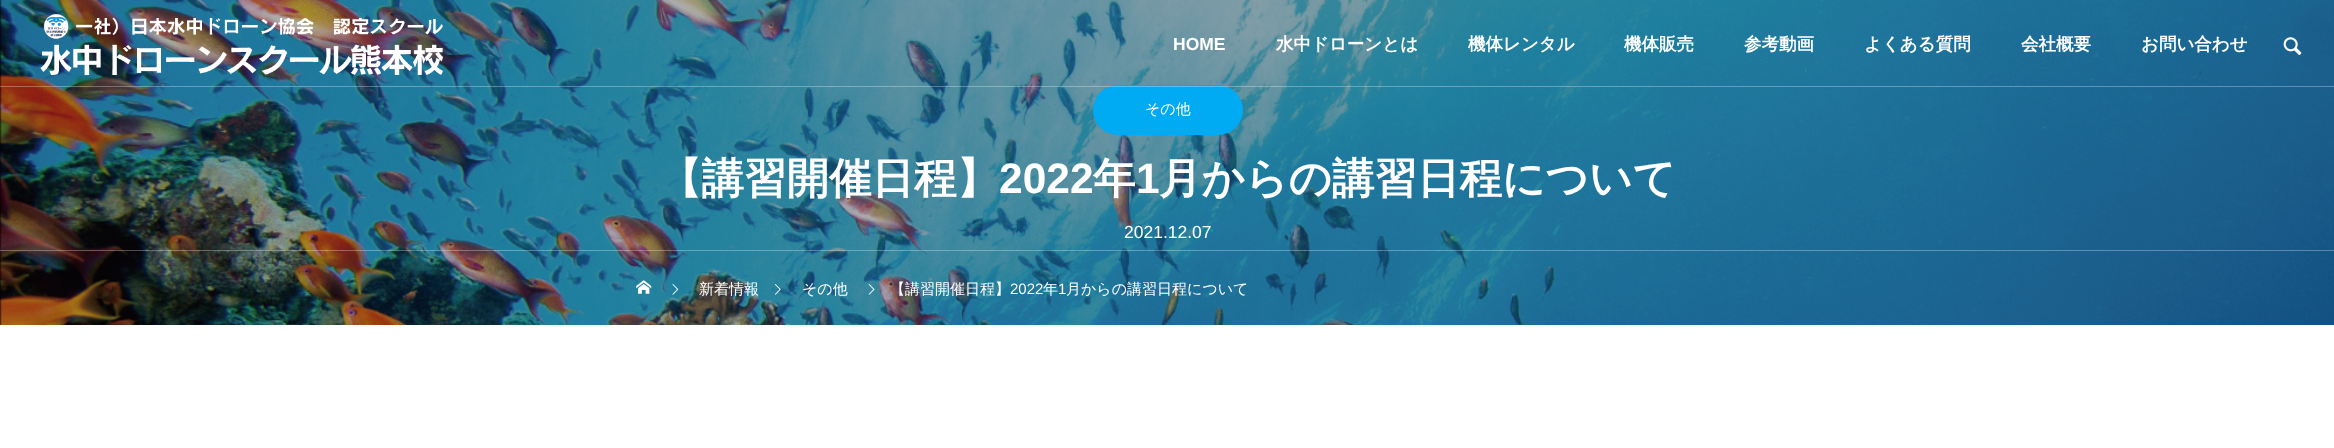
async function draw(canvas) {
  canvas.width = 2334
  canvas.height = 448
  const ctx = canvas.getContext('2d')
  ctx.miterLimit = 4
  ctx.fontKerning = 'normal'
  async function loadImage(src) {
    const img = new Image()
    img.src = src
    await img.decode()
    return img
  }

  ctx.fillStyle = '#fff'
  ctx.fillRect(0, 0, 2334, 448)
  ctx.fillStyle = '#000'
  ctx.fillRect(0, 0, 2, 325)
  ctx.drawImage(await loadImage('image2.png'), 0, 0, 2334, 325)
  ctx.fillStyle = '#00abf4'
  ctx.beginPath()
  ctx.roundRect(1093, 85, 150, 50, 25)
  ctx.fill()
  ctx.fillStyle = '#ffffff4d'
  ctx.fillRect(0, 86, 2334, 1)
  ctx.drawImage(await loadImage('image0.png'), 40, 14, 403, 61)
  ctx.font = 'bold 17.5px Liberation Sans'
  ctx.fillStyle = '#fff'
  ctx.fillText('HOME', 1173, 50)
  ctx.font = 'bold 17.5px WenQuanYi Zen Hei'
  ctx.fillText('水中ドローンとは', 1276, 50)
  ctx.fillText('機体レンタル', 1468, 50)
  ctx.fillText('機体販売', 1624, 50)
  ctx.fillText('参考動画', 1744, 50)
  ctx.fillText('よくある質問', 1864, 50)
  ctx.fillText('会社概要', 2021, 50)
  ctx.fillText('お問い合わせ', 2141, 50)
  ctx.drawImage(await loadImage('image1.png'), 2283, 37, 19, 18)
  ctx.font = '500 15px WenQuanYi Zen Hei'
  ctx.fillText('その他', 1145, 114)
  ctx.font = 'bold 42.5px WenQuanYi Zen Hei'
  ctx.fillText('【講習開催日程】', 659, 193)
  ctx.font = 'bold 42.5px Liberation Sans'
  ctx.fillText('2022', 999, 193)
  ctx.font = 'bold 42.5px WenQuanYi Zen Hei'
  ctx.fillText('年', 1093, 193)
  ctx.font = 'bold 42.5px Liberation Sans'
  ctx.fillText('1', 1136, 193)
  ctx.font = 'bold 42.5px WenQuanYi Zen Hei'
  ctx.fillText('月からの講習日程について', 1159, 193)
  ctx.font = '17.5px Liberation Sans'
  ctx.fillText('2021.12.07', 1124, 238)
  ctx.fillStyle = '#ffffff4d'
  ctx.fillRect(0, 250, 2334, 1)
  ctx.drawImage(await loadImage('image3.png'), 636, 280, 16, 14)
  ctx.drawImage(await loadImage('image4.png'), 672, 284, 7, 11)
  ctx.font = '500 15px WenQuanYi Zen Hei'
  ctx.fillStyle = '#fff'
  ctx.fillText('新着情報', 699, 294)
  ctx.drawImage(await loadImage('image5.png'), 775, 284, 6, 11)
  ctx.fillText('その他', 802, 294)
  ctx.drawImage(await loadImage('image6.png'), 868, 284, 7, 11)
  ctx.fillText('【講習開催日程】', 890, 294)
  ctx.font = '15px Liberation Sans'
  ctx.fillText('2022', 1010, 294)
  ctx.font = '500 15px WenQuanYi Zen Hei'
  ctx.fillText('年', 1043, 294)
  ctx.font = '15px Liberation Sans'
  ctx.fillText('1', 1058, 294)
  ctx.font = '500 15px WenQuanYi Zen Hei'
  ctx.fillText('月からの講習日程について', 1066, 294)
}

draw(document.querySelector('canvas'))
